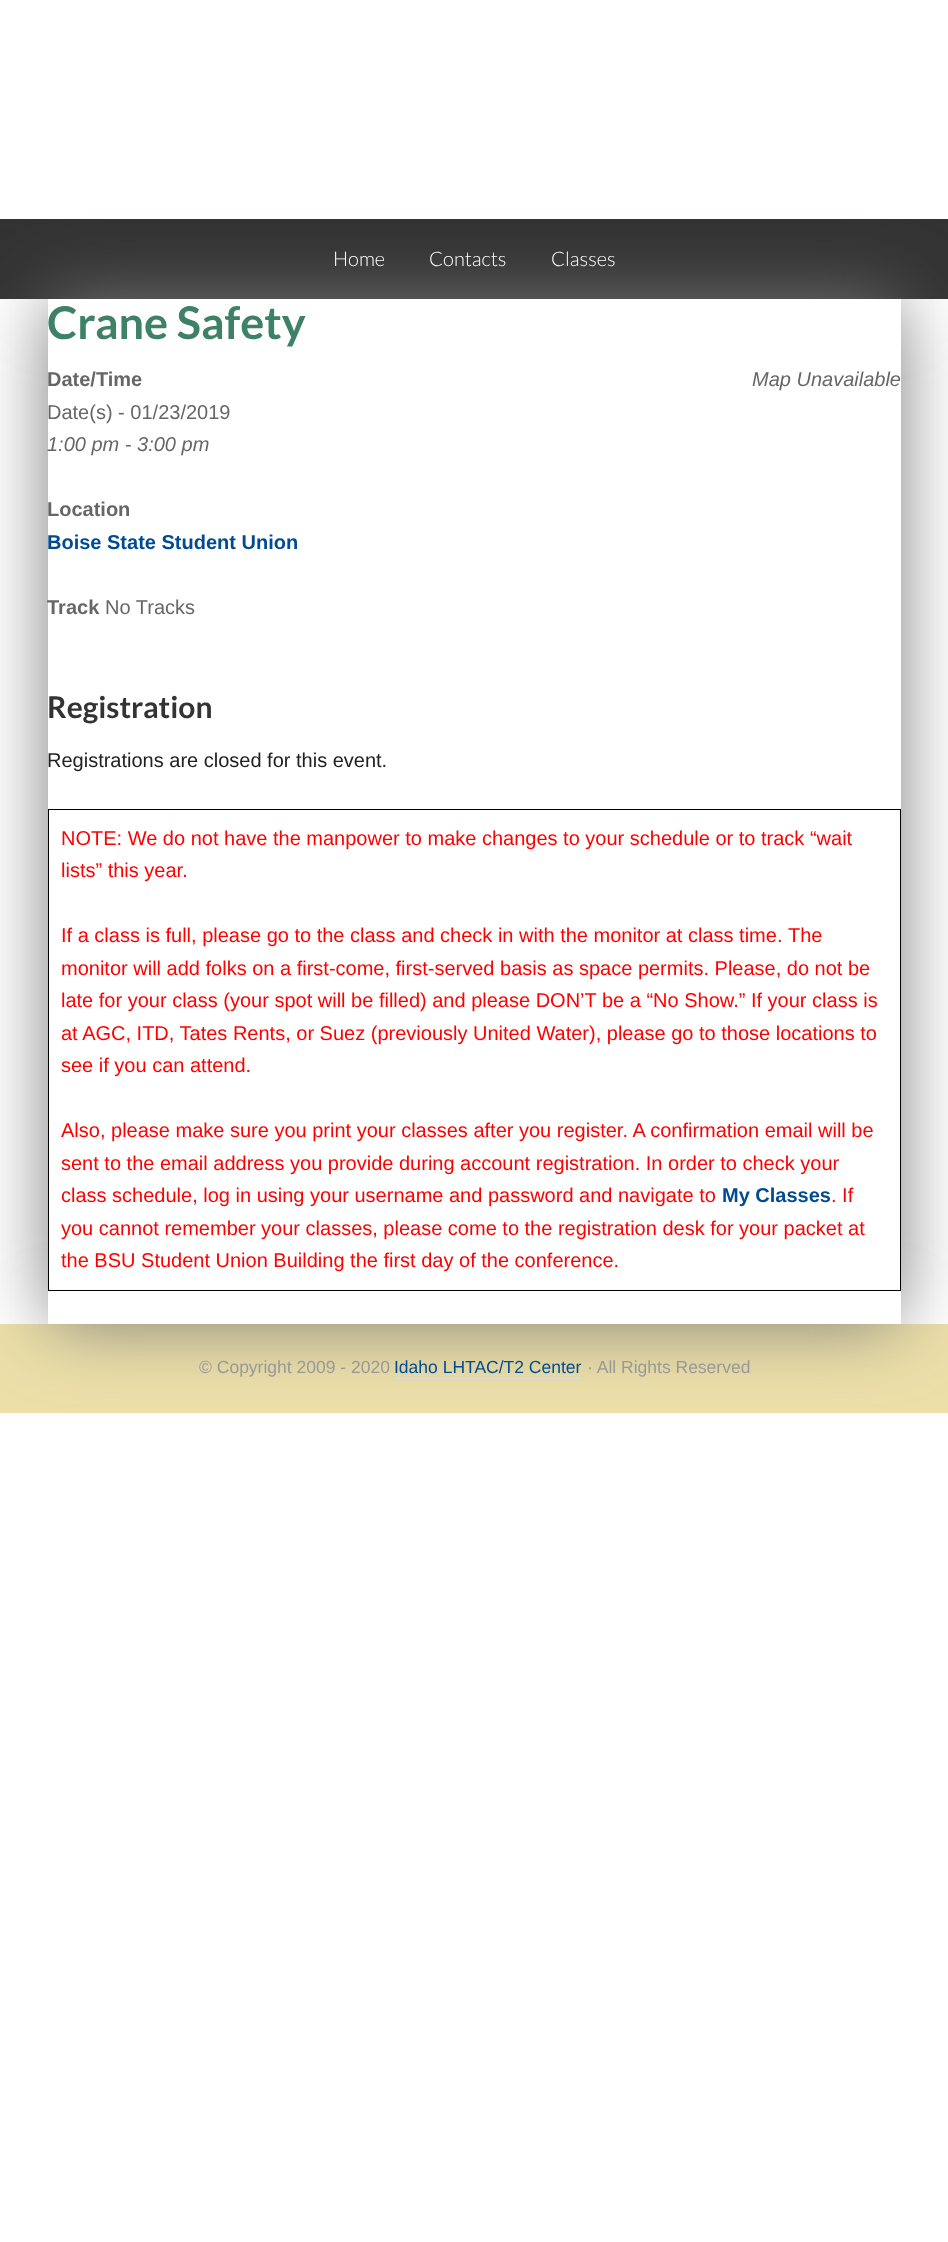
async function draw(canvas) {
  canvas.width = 948
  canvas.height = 2242
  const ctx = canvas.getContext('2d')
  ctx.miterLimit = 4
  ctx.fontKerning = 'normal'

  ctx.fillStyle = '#fff'
  ctx.fillRect(0, 0, 948, 2242)
  ctx.fillStyle = '#333'
  ctx.fillRect(0, 219, 948, 80)
  ctx.fillStyle = '#ecdfa8'
  ctx.fillRect(0, 1324, 948, 89)
  ctx.save()
  ctx.beginPath()
  ctx.moveTo(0, 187)
  ctx.lineTo(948, 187)
  ctx.lineTo(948, 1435)
  ctx.lineTo(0, 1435)
  ctx.closePath()
  ctx.moveTo(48, 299)
  ctx.lineTo(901, 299)
  ctx.lineTo(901, 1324)
  ctx.lineTo(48, 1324)
  ctx.closePath()
  ctx.clip('evenodd')
  ctx.fillStyle = '#777'
  ctx.filter = 'blur(37.5px)'
  ctx.beginPath()
  ctx.rect(50, 301, 849, 1020)
  ctx.fill()
  ctx.filter = 'none'
  ctx.restore()
  ctx.font = '300 20px Lato'
  ctx.fillStyle = '#fff'
  ctx.fillText('Home', 333, 266)
  ctx.fillText('Contacts', 429, 266)
  ctx.fillText('Classes', 551, 266)
  ctx.beginPath()
  ctx.roundRect(48, 299, 853, 1025, 4)
  ctx.fill()
  ctx.font = 'bold 45px Lato'
  ctx.fillStyle = '#3e8167'
  ctx.fillText('Crane Safety', 47, 339)
  ctx.font = 'bold 20px Liberation Sans'
  ctx.fillStyle = '#666'
  ctx.fillText('Date/Time', 47, 386)
  ctx.font = '20px Liberation Sans'
  ctx.fillText('Date(s) - 01/23/2019', 47, 419)
  ctx.font = 'italic 20px Liberation Sans'
  ctx.fillText('1:00 pm - 3:00 pm', 47, 451)
  ctx.fillText('Map Unavailable', 752, 386)
  ctx.font = 'bold 20px Liberation Sans'
  ctx.fillText('Location', 47, 516)
  ctx.fillStyle = '#004b91'
  ctx.fillText('Boise State Student Union', 47, 549)
  ctx.fillStyle = '#666'
  ctx.fillText('Track', 47, 614)
  ctx.font = '20px Liberation Sans'
  ctx.fillText('No Tracks', 105, 614)
  ctx.font = 'bold 30px Lato'
  ctx.fillStyle = '#333'
  ctx.fillText('Registration', 47, 718)
  ctx.font = '20px Liberation Sans'
  ctx.fillStyle = '#212121'
  ctx.fillText('Registrations are closed for this event.', 47, 767)
  ctx.strokeStyle = '#000'
  ctx.strokeRect(48.5, 809.5, 852, 481)
  ctx.fillStyle = '#f00'
  ctx.fillText('NOTE: We do not have the manpower to make changes to your schedule or to track “wait', 61, 845)
  ctx.fillText('lists” this year.', 61, 877)
  ctx.fillText('If a class is full, please go to the class and check in with the monitor at class time.', 61, 942)
  ctx.fillText('The', 788, 942)
  ctx.fillText('monitor will add folks on a first-come, first-served basis as space permits. Please, do not be', 61, 975)
  ctx.fillText('late for your class (your spot will be filled) and please DON’T be a “No Show.” If your class is', 61, 1007)
  ctx.fillText('at AGC, ITD, Tates Rents, or Suez (previously United Water), please go to those locations to', 61, 1040)
  ctx.fillText('see if you can attend.', 61, 1072)
  ctx.fillText('Also, please make sure you print your classes after you register. A confirmation email will be', 61, 1137)
  ctx.fillText('sent to the email address you provide during account registration. In order to check your', 61, 1170)
  ctx.fillText('class schedule, log in using your username and password and navigate to', 61, 1202)
  ctx.font = 'bold 20px Liberation Sans'
  ctx.fillStyle = '#004b91'
  ctx.fillText('My Classes', 722, 1202)
  ctx.font = '20px Liberation Sans'
  ctx.fillStyle = '#f00'
  ctx.fillText('. If', 831, 1202)
  ctx.fillText('you cannot remember your classes, please come to the registration desk for your packet at', 61, 1235)
  ctx.fillText('the BSU Student Union Building the first day of the conference.', 61, 1267)
  ctx.font = '17.5px Liberation Sans'
  ctx.fillStyle = '#999'
  ctx.fillText('© Copyright 2009 - 2020', 199, 1373)
  ctx.fillStyle = '#004b91'
  ctx.fillText('Idaho LHTAC/T2 Center', 394, 1373)
  ctx.fillStyle = '#ddd'
  ctx.fillRect(395, 1378, 186, 1)
  ctx.fillStyle = '#999'
  ctx.fillText('· All Rights Reserved', 587, 1373)
}

draw(document.querySelector('canvas'))
